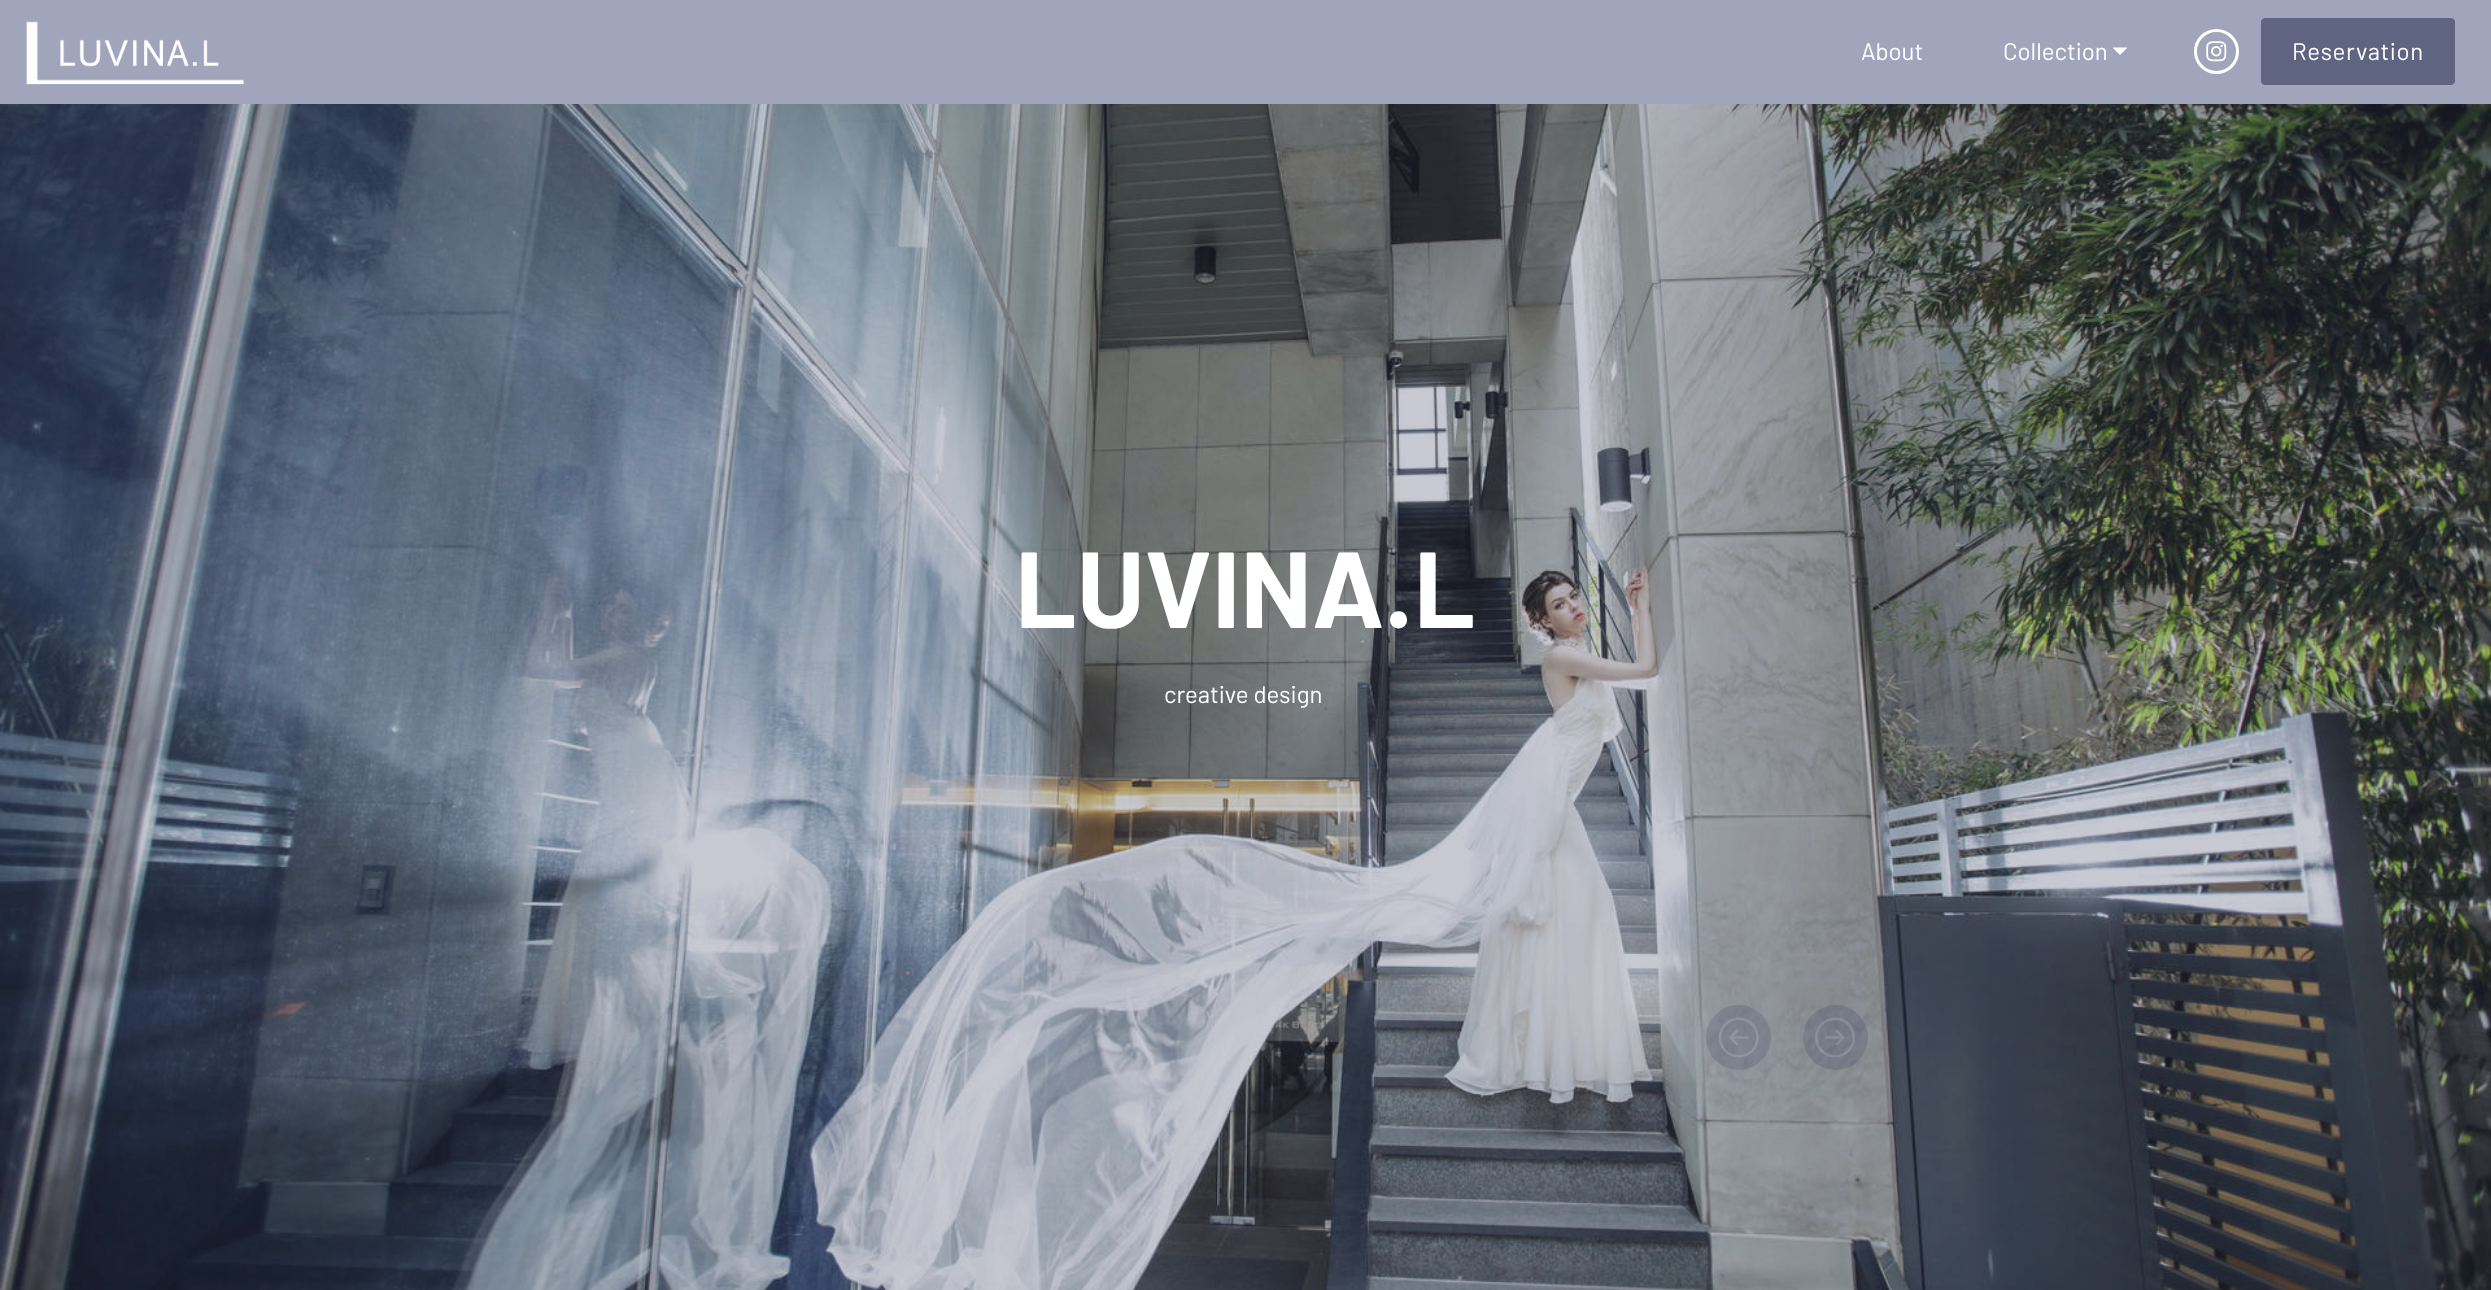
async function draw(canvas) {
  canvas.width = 2491
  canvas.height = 1290
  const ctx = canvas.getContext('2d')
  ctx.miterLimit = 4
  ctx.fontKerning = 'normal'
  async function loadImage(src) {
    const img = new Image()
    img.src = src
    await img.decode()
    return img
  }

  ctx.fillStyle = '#fff'
  ctx.fillRect(0, 0, 2491, 1290)
  ctx.fillStyle = '#a1a5bb'
  ctx.fillRect(0, 0, 2491, 104)
  ctx.drawImage(await loadImage('image0.png'), 26, 21, 218, 64)
  ctx.font = '24px Barlow'
  ctx.fillStyle = '#fff'
  ctx.fillText('About', 1861, 60)
  ctx.fillText('Collection', 2003, 60)
  ctx.beginPath()
  ctx.moveTo(2112.5, 47.5)
  ctx.lineTo(2127.5, 47.5)
  ctx.lineTo(2120, 55)
  ctx.closePath()
  ctx.fill()
  ctx.beginPath()
  ctx.arc(2216.5, 51.5, 21, 0, 2 * Math.PI)
  ctx.strokeStyle = '#fff'
  ctx.lineWidth = 3
  ctx.stroke()
  ctx.drawImage(await loadImage('image1.png'), 2206, 41, 21, 21)
  ctx.fillStyle = '#5f6481'
  ctx.beginPath()
  ctx.roundRect(2261.5, 18.5, 193, 66, 3.5)
  ctx.fill()
  ctx.strokeStyle = '#5f6481'
  ctx.lineWidth = 1
  ctx.stroke()
  ctx.letterSpacing = '0.6px'
  ctx.fillStyle = '#fff'
  ctx.fillText('Reservation', 2292, 60)
  ctx.drawImage(await loadImage('image2.png'), 0, 104, 2491, 1186)
  ctx.letterSpacing = '0px'
  ctx.font = 'bold 108px Barlow'
  ctx.fillText('LUVINA.L', 1015, 628)
  ctx.font = '24px Barlow'
  ctx.fillText('creative design', 1164, 703)
  ctx.fillStyle = '#1a214a26'
  ctx.beginPath()
  ctx.arc(1738.5, 1037.5, 32.5, 0, 2 * Math.PI)
  ctx.fill()
  ctx.drawImage(await loadImage('image3.png'), 1718, 1017, 41, 41)
  ctx.beginPath()
  ctx.arc(1835.5, 1037.5, 32.5, 0, 2 * Math.PI)
  ctx.fill()
  ctx.drawImage(await loadImage('image4.png'), 1815, 1017, 40, 41)
}

draw(document.querySelector('canvas'))
